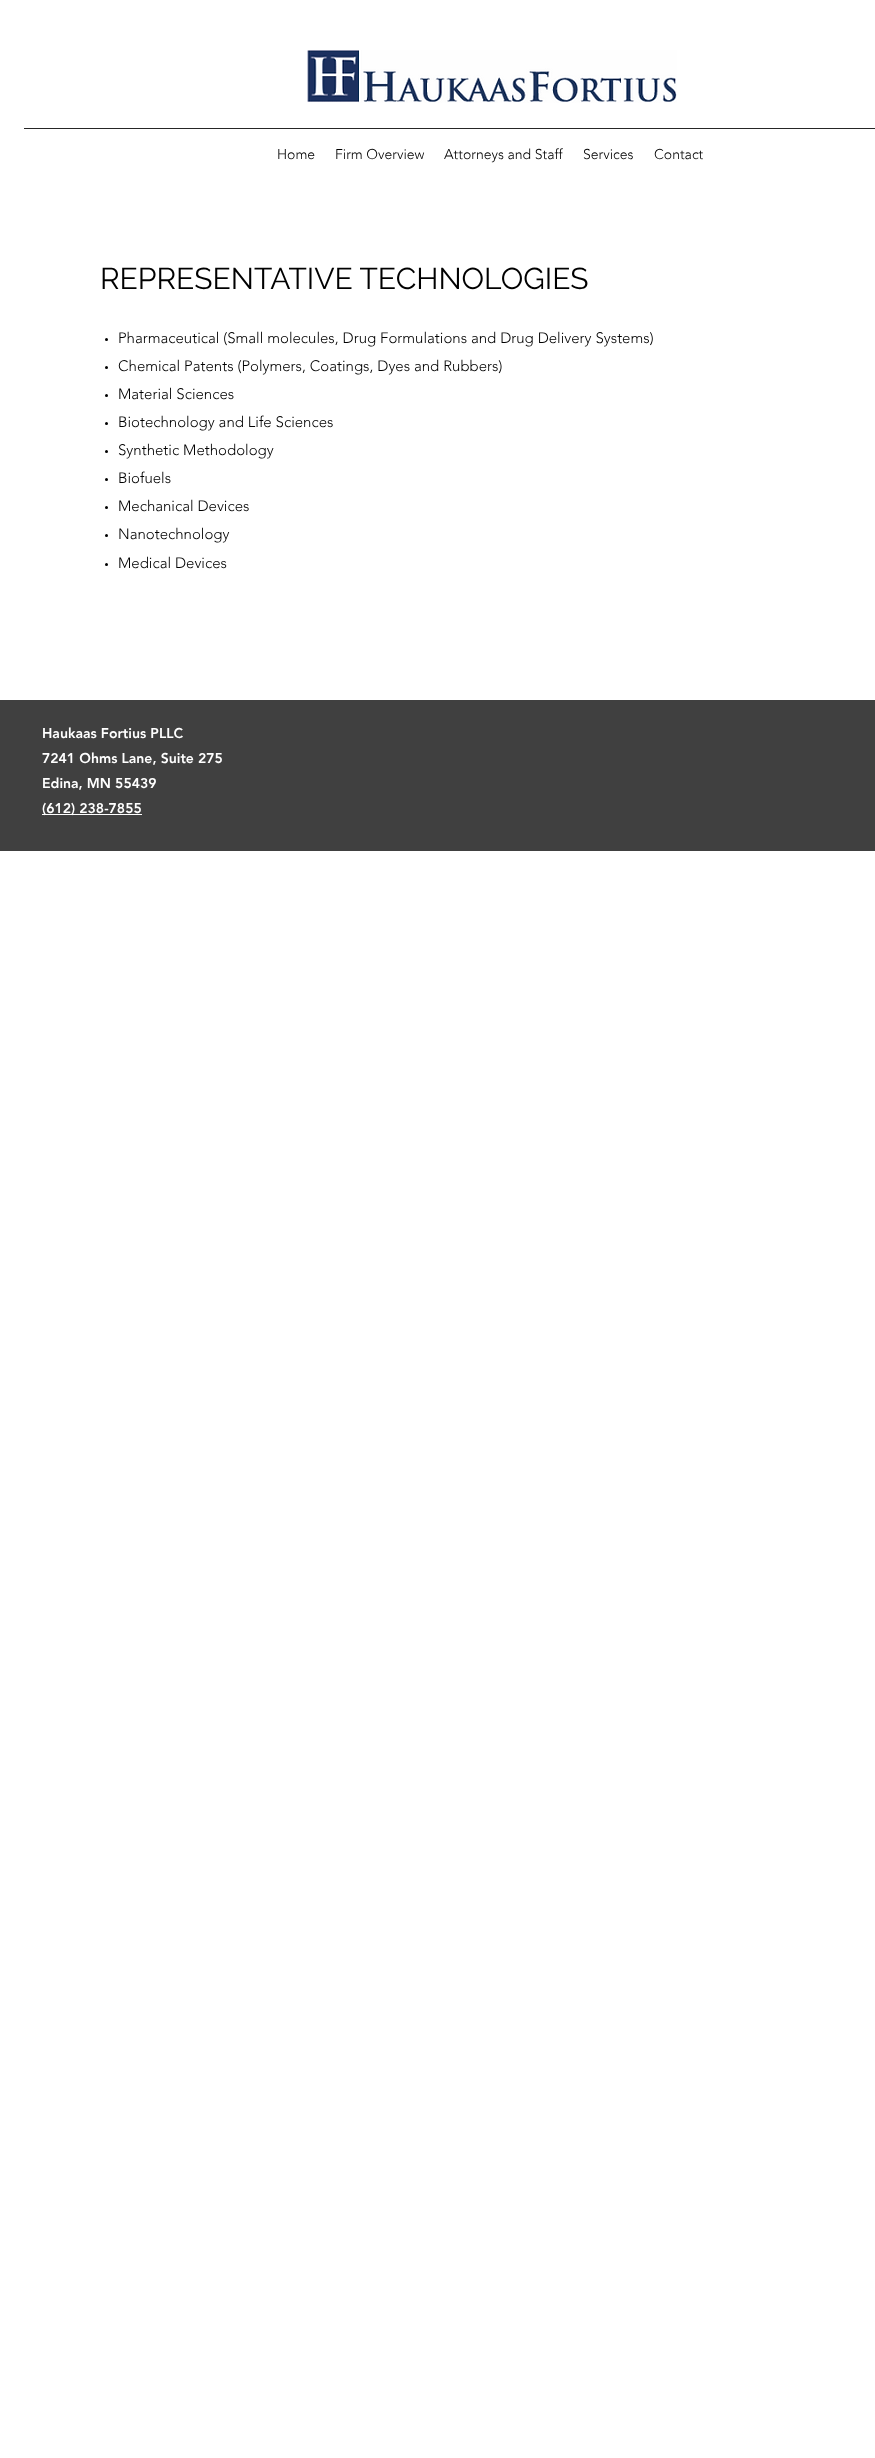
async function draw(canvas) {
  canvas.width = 875
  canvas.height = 2458
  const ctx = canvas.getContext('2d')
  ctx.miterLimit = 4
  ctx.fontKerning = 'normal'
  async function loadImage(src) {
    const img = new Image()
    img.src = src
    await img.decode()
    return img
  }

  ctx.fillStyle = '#fff'
  ctx.fillRect(0, 0, 875, 2458)
  ctx.drawImage(await loadImage('image0.png'), 307, 50, 370, 53)
  ctx.fillStyle = '#262626'
  ctx.fillRect(24, 128, 851, 1)
  ctx.font = '300 14px "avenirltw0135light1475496"'
  ctx.fillStyle = '#000'
  ctx.fillText('Home', 277, 159)
  ctx.fillText('Firm Overview', 335, 159)
  ctx.fillText('Attorneys and Staff', 444, 159)
  ctx.fillText('Services', 583, 159)
  ctx.fillText('Contact', 654, 159)
  ctx.font = '30px Raleway'
  ctx.fillText('REPRESENTATIVE TECHNOLOGIES', 100, 289)
  ctx.beginPath()
  ctx.arc(106.5, 339.5, 1.5, 0, 2 * Math.PI)
  ctx.fill()
  ctx.font = '300 15px "avenirltw0135light1475496"'
  ctx.fillText('Pharmaceutical (Small molecules, Drug Formulations and Drug Delivery Systems)', 118, 343)
  ctx.beginPath()
  ctx.arc(106.5, 367.5, 1.5, 0, 2 * Math.PI)
  ctx.fill()
  ctx.fillText('Chemical Patents (Polymers, Coatings, Dyes and Rubbers)', 118, 371)
  ctx.beginPath()
  ctx.arc(106.5, 395.5, 1.5, 0, 2 * Math.PI)
  ctx.fill()
  ctx.fillText('Material Sciences', 118, 399)
  ctx.beginPath()
  ctx.arc(106.5, 423.5, 1.5, 0, 2 * Math.PI)
  ctx.fill()
  ctx.fillText('Biotechnology and Life Sciences', 118, 427)
  ctx.beginPath()
  ctx.arc(106.5, 451.5, 1.5, 0, 2 * Math.PI)
  ctx.fill()
  ctx.fillText('Synthetic Methodology', 118, 455)
  ctx.beginPath()
  ctx.arc(106.5, 479.5, 1.5, 0, 2 * Math.PI)
  ctx.fill()
  ctx.fillText('Biofuels', 118, 483)
  ctx.beginPath()
  ctx.arc(106.5, 507.5, 1.5, 0, 2 * Math.PI)
  ctx.fill()
  ctx.fillText('Mechanical Devices', 118, 511)
  ctx.beginPath()
  ctx.arc(106.5, 535.5, 1.5, 0, 2 * Math.PI)
  ctx.fill()
  ctx.fillText('Nanotechnology', 118, 539)
  ctx.beginPath()
  ctx.arc(106.5, 564.5, 1.5, 0, 2 * Math.PI)
  ctx.fill()
  ctx.fillText('Medical Devices', 118, 568)
  ctx.fillStyle = '#404040'
  ctx.fillRect(0, 700, 875, 151)
  ctx.font = '900 14px "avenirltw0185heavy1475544"'
  ctx.fillStyle = '#fff'
  ctx.fillText('Haukaas Fortius PLLC', 42, 738)
  ctx.fillText('7241 Ohms Lane, Suite 275', 42, 763)
  ctx.fillText('Edina, MN 55439', 42, 788)
  ctx.fillRect(42, 814, 100, 1)
  ctx.fillText('(612) 238-7855', 42, 813)
}

draw(document.querySelector('canvas'))
